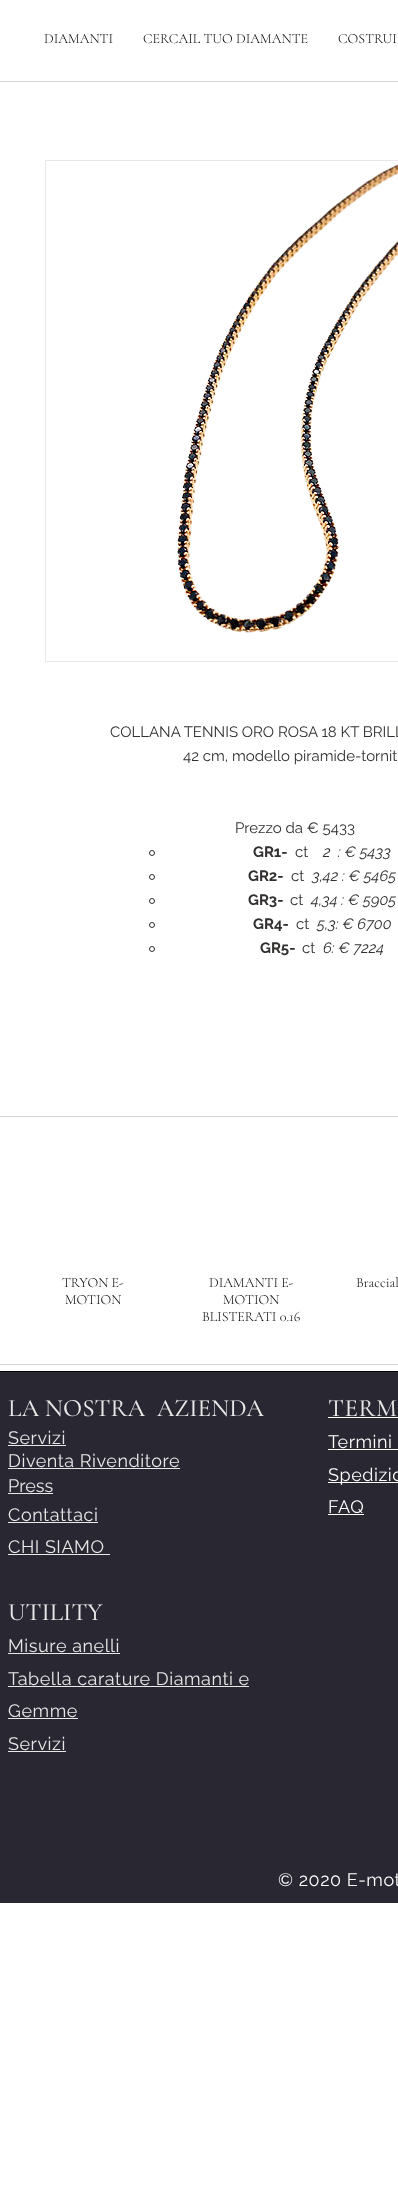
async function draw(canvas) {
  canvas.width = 398
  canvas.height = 2203
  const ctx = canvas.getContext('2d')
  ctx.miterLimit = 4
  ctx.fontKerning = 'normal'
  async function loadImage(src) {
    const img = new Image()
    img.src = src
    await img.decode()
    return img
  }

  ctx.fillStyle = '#fff'
  ctx.fillRect(0, 0, 398, 2203)
  ctx.font = '300 14px Cormorant Garamond'
  ctx.fillStyle = '#000'
  ctx.fillText('DIAMANTI', 44, 43)
  ctx.fillText('CERCAIL TUO DIAMANTE', 143, 43)
  ctx.fillText('COSTRUI', 338, 43)
  ctx.fillStyle = '#d6d6d6'
  ctx.fillRect(0, 81, 398, 1)
  ctx.strokeStyle = '#e8e8e8'
  ctx.strokeRect(45.5, 160.5, 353, 501)
  ctx.drawImage(await loadImage('image0.png'), 177, 164, 221, 469)
  ctx.font = '15px Raleway'
  ctx.fillStyle = '#32302f'
  ctx.fillText('COLLANA TENNIS ORO ROSA 18 KT BRILL', 110, 737)
  ctx.fillText('42 cm, modello piramide-tornit', 183, 761)
  ctx.fillText('Prezzo da € 5433', 235, 833)
  ctx.beginPath()
  ctx.arc(152, 853, 2.5, 0, 2 * Math.PI)
  ctx.strokeStyle = '#32302f'
  ctx.stroke()
  ctx.font = 'bold 15px Raleway'
  ctx.fillText('GR1-', 253, 857)
  ctx.font = '15px Raleway'
  ctx.fillText('ct', 295, 857)
  ctx.font = 'italic 15px Raleway'
  ctx.fillText('2  : € 5433', 323, 857)
  ctx.beginPath()
  ctx.arc(152, 877, 2.5, 0, 2 * Math.PI)
  ctx.stroke()
  ctx.font = 'bold 15px Raleway'
  ctx.fillText('GR2-', 248, 881)
  ctx.font = '15px Raleway'
  ctx.fillText('ct', 291, 881)
  ctx.font = 'italic 15px Raleway'
  ctx.fillText('3,42 : € 5465', 312, 881)
  ctx.beginPath()
  ctx.arc(152, 901, 2.5, 0, 2 * Math.PI)
  ctx.stroke()
  ctx.font = 'bold 15px Raleway'
  ctx.fillText('GR3-', 248, 905)
  ctx.font = '15px Raleway'
  ctx.fillText('ct', 290, 905)
  ctx.font = 'italic 15px Raleway'
  ctx.fillText('4,34 : € 5905', 311, 905)
  ctx.beginPath()
  ctx.arc(152, 925, 2.5, 0, 2 * Math.PI)
  ctx.stroke()
  ctx.font = 'bold 15px Raleway'
  ctx.fillText('GR4-', 253, 929)
  ctx.font = '15px Raleway'
  ctx.fillText('ct', 296, 929)
  ctx.font = 'italic 15px Raleway'
  ctx.fillText('5,3: € 6700', 317, 929)
  ctx.beginPath()
  ctx.arc(152, 949, 2.5, 0, 2 * Math.PI)
  ctx.stroke()
  ctx.font = 'bold 15px Raleway'
  ctx.fillText('GR5-', 260, 953)
  ctx.font = '15px Raleway'
  ctx.fillText('ct', 302, 953)
  ctx.font = 'italic 15px Raleway'
  ctx.fillText('6: € 7224', 323, 953)
  ctx.fillStyle = '#d6d6d6'
  ctx.fillRect(0, 1116, 398, 1)
  ctx.font = '300 14px Cormorant Garamond'
  ctx.fillStyle = '#000'
  ctx.fillText('TRYON E-', 62, 1287)
  ctx.fillText('MOTION', 65, 1304)
  ctx.fillText('DIAMANTI E-', 209, 1287)
  ctx.fillText('MOTION', 223, 1304)
  ctx.fillText('BLISTERATI 0.16', 202, 1321)
  ctx.fillText('Braccial', 356, 1287)
  ctx.fillStyle = '#d6d6d6'
  ctx.fillRect(0, 1364, 398, 1)
  ctx.fillStyle = '#282732'
  ctx.fillRect(0, 1372, 398, 531)
  ctx.fillStyle = '#000'
  ctx.fillRect(0, 1371, 398, 1)
  ctx.font = '500 25px Cormorant Garamond'
  ctx.fillStyle = '#e8e8e8'
  ctx.fillText('LA NOSTRA  AZIENDA', 8, 1416)
  ctx.letterSpacing = '0.55px'
  ctx.font = '18px Raleway'
  ctx.fillText('Servizi', 8, 1444)
  ctx.fillRect(8, 1445, 58, 1)
  ctx.fillText('Diventa Rivenditore', 8, 1467)
  ctx.fillRect(8, 1468, 172, 1)
  ctx.letterSpacing = '0px'
  ctx.fillText('Press', 8, 1492)
  ctx.fillRect(8, 1493, 45, 1)
  ctx.letterSpacing = '0.55px'
  ctx.fillText('Contattaci', 8, 1521)
  ctx.fillRect(8, 1522, 90, 1)
  ctx.fillText('CHI SIAMO', 8, 1553)
  ctx.fillRect(8, 1554, 102, 1)
  ctx.letterSpacing = '0px'
  ctx.font = '500 25px Cormorant Garamond'
  ctx.fillText('UTILITY', 8, 1620)
  ctx.letterSpacing = '0.55px'
  ctx.font = '18px Raleway'
  ctx.fillText('Misure anelli', 8, 1652)
  ctx.fillRect(8, 1653, 112, 1)
  ctx.fillText('Tabella carature Diamanti e', 8, 1685)
  ctx.fillRect(8, 1686, 241, 1)
  ctx.fillText('Gemme', 8, 1717)
  ctx.fillRect(8, 1718, 70, 1)
  ctx.fillText('Servizi', 8, 1750)
  ctx.fillRect(8, 1751, 58, 1)
  ctx.font = '500 25px Cormorant Garamond'
  ctx.fillText('TERM', 328, 1416)
  ctx.fillStyle = '#fff'
  ctx.fillRect(328, 1417, 70, 1)
  ctx.font = '18px Raleway'
  ctx.fillText('Termini', 328, 1448)
  ctx.fillRect(328, 1449, 70, 1)
  ctx.fillRect(328, 1482, 70, 1)
  ctx.fillText('Spedizio', 328, 1481)
  ctx.fillText('FAQ', 328, 1513)
  ctx.fillRect(328, 1514, 36, 1)
  ctx.fillText('© 2020 E-mot', 278, 1886)
}

draw(document.querySelector('canvas'))
